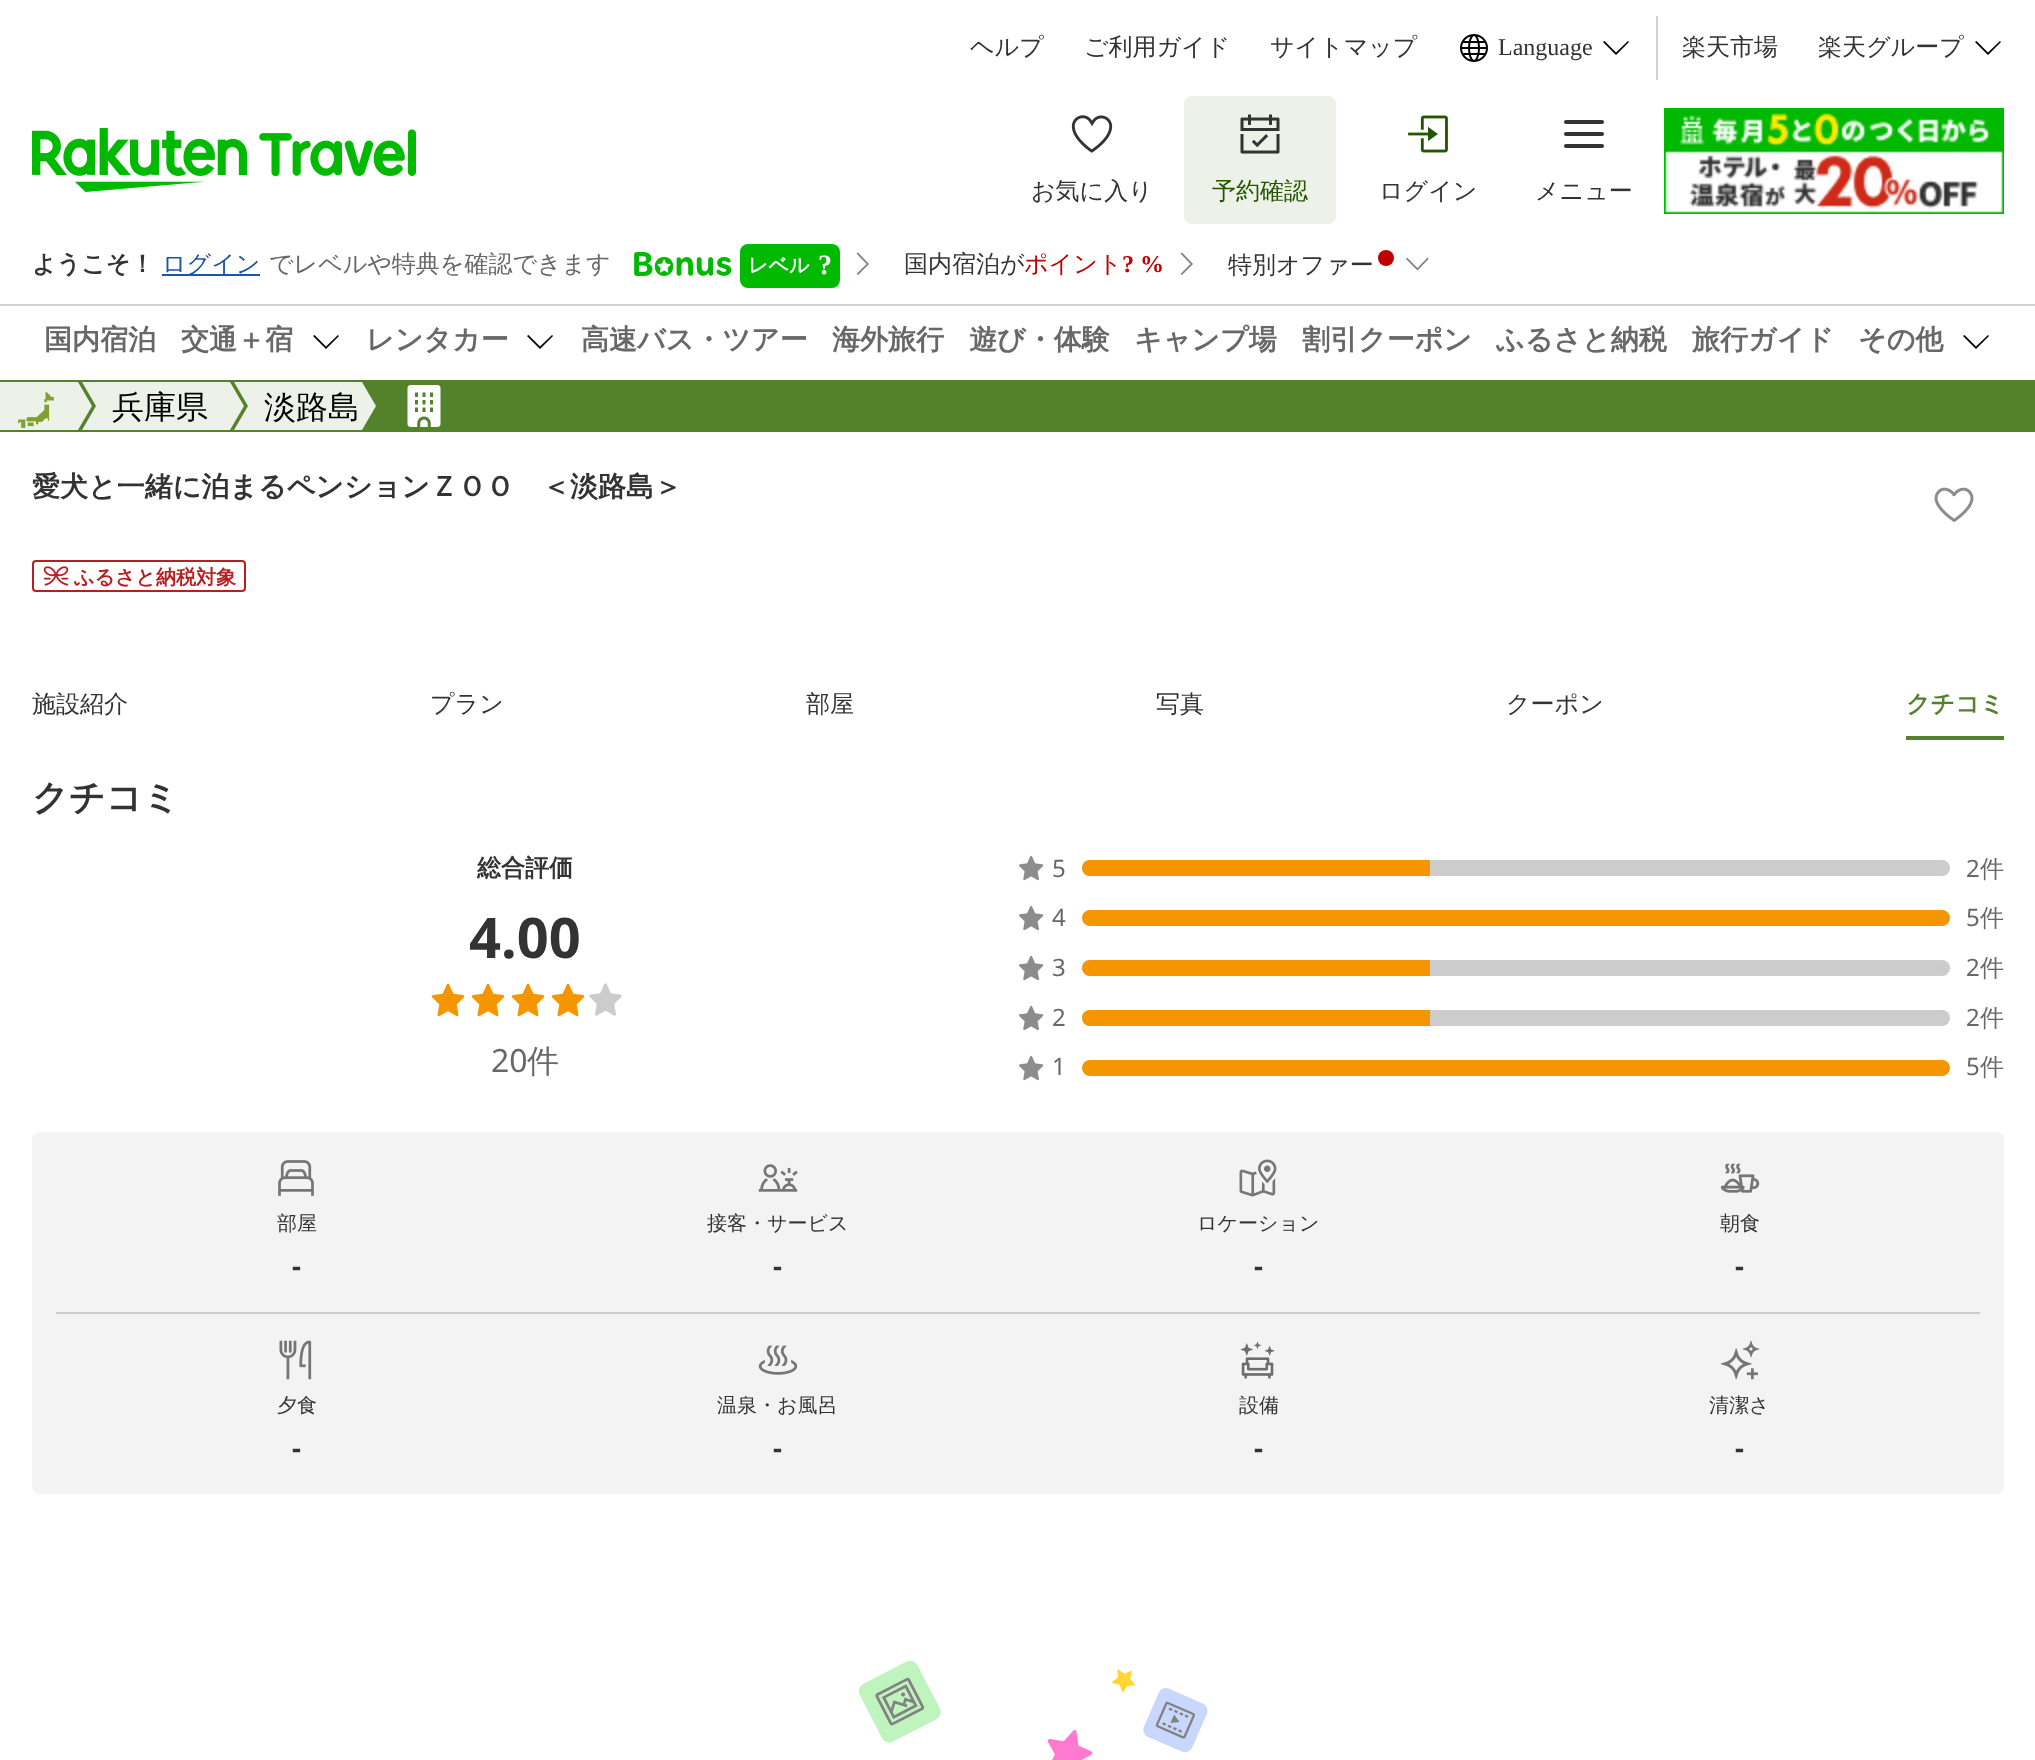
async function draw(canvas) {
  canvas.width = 2035
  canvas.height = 1760
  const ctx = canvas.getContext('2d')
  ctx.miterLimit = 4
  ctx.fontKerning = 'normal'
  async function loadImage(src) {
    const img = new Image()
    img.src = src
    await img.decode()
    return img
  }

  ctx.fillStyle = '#fff'
  ctx.fillRect(0, 0, 2035, 1760)
  ctx.font = '500 24px WenQuanYi Zen Hei'
  ctx.fillStyle = '#333'
  ctx.fillText('ヘルプ', 970, 55)
  ctx.fillText('ご利用ガイド', 1084, 55)
  ctx.fillText('サイトマップ', 1270, 55)
  ctx.drawImage(await loadImage('image0.png'), 1460, 34, 28, 28)
  ctx.font = '24px Liberation Serif'
  ctx.fillText('Language', 1498, 55)
  ctx.fillStyle = '#000'
  ctx.beginPath()
  ctx.moveTo(1629, 42)
  ctx.lineTo(1628, 41)
  ctx.lineTo(1616, 52.5)
  ctx.lineTo(1604.5, 41)
  ctx.lineTo(1603, 42)
  ctx.lineTo(1616, 55)
  ctx.closePath()
  ctx.fill('evenodd')
  ctx.fillStyle = '#d1d1d1'
  ctx.fillRect(1656, 16, 2, 64)
  ctx.font = '500 24px WenQuanYi Zen Hei'
  ctx.fillStyle = '#333'
  ctx.fillText('楽天市場', 1682, 55)
  ctx.fillText('楽天グループ', 1818, 55)
  ctx.fillStyle = '#000'
  ctx.beginPath()
  ctx.moveTo(2001, 42)
  ctx.lineTo(2000, 41)
  ctx.lineTo(1988, 52.5)
  ctx.lineTo(1976.5, 41)
  ctx.lineTo(1975, 42)
  ctx.lineTo(1988, 55)
  ctx.closePath()
  ctx.fill('evenodd')
  ctx.drawImage(await loadImage('image1.png'), 32, 128, 384, 64)
  ctx.drawImage(await loadImage('image2.png'), 1071, 115, 42, 38)
  ctx.fillStyle = '#333'
  ctx.fillText('お気に入り', 1031, 199)
  ctx.fillStyle = '#edf2e9'
  ctx.beginPath()
  ctx.roundRect(1184, 96, 152, 128, 8)
  ctx.fill()
  ctx.drawImage(await loadImage('image3.png'), 1240, 114, 40, 40)
  ctx.fillStyle = '#255500'
  ctx.fillText('予約確認', 1212, 199)
  ctx.drawImage(await loadImage('image4.png'), 1408, 115, 40, 38)
  ctx.fillStyle = '#333'
  ctx.fillText('ログイン', 1379, 199)
  ctx.drawImage(await loadImage('image5.png'), 1564, 120, 40, 28)
  ctx.fillText('メニュー', 1535, 199)
  ctx.drawImage(await loadImage('image6.png'), 1664, 108, 340, 106)
  ctx.font = 'bold 24px WenQuanYi Zen Hei'
  ctx.fillText('ようこそ！', 32, 272)
  ctx.fillStyle = '#1d54a7'
  ctx.fillRect(162, 274, 98, 2)
  ctx.font = '500 24px WenQuanYi Zen Hei'
  ctx.fillText('ログイン', 162, 272)
  ctx.fillStyle = '#686868'
  ctx.fillText('でレベルや特典を確認できます', 269, 272)
  ctx.drawImage(await loadImage('image7.png'), 634, 252, 98, 24)
  ctx.fillStyle = '#00b900'
  ctx.beginPath()
  ctx.roundRect(740, 244, 100, 44, 8)
  ctx.fill()
  ctx.font = 'bold 20px WenQuanYi Zen Hei'
  ctx.fillStyle = '#fff'
  ctx.fillText('レベル', 748, 272)
  ctx.font = 'bold 28px Liberation Serif'
  ctx.fillText('?', 818, 274)
  ctx.fillStyle = '#828282'
  ctx.beginPath()
  ctx.moveTo(858, 252.5)
  ctx.lineTo(856.5, 253.5)
  ctx.lineTo(866.5, 264)
  ctx.lineTo(856.5, 274)
  ctx.lineTo(858, 275)
  ctx.lineTo(869, 264)
  ctx.closePath()
  ctx.fill('evenodd')
  ctx.font = '500 24px WenQuanYi Zen Hei'
  ctx.fillStyle = '#333'
  ctx.fillText('国内宿泊が', 904, 272)
  ctx.fillStyle = '#bf0000'
  ctx.fillText('ポイント', 1024, 272)
  ctx.font = 'bold 24px Liberation Serif'
  ctx.fillText('? %', 1122, 272)
  ctx.fillStyle = '#828282'
  ctx.beginPath()
  ctx.moveTo(1182, 252.5)
  ctx.lineTo(1180.5, 253.5)
  ctx.lineTo(1190.5, 264)
  ctx.lineTo(1180.5, 274)
  ctx.lineTo(1182, 275)
  ctx.lineTo(1193, 264)
  ctx.closePath()
  ctx.fill('evenodd')
  ctx.font = '500 24px WenQuanYi Zen Hei'
  ctx.fillStyle = '#333'
  ctx.fillText('特別オファー', 1228, 273)
  ctx.fillStyle = '#bf0000'
  ctx.beginPath()
  ctx.arc(1386, 258, 8, 0, 2 * Math.PI)
  ctx.fill()
  ctx.fillStyle = '#828282'
  ctx.beginPath()
  ctx.moveTo(1428.5, 259)
  ctx.lineTo(1427.5, 257.5)
  ctx.lineTo(1417.5, 268)
  ctx.lineTo(1407, 257.5)
  ctx.lineTo(1406, 259)
  ctx.lineTo(1417.5, 270.5)
  ctx.closePath()
  ctx.fill('evenodd')
  ctx.fillStyle = '#d1d1d1'
  ctx.fillRect(0, 304, 2035, 2)
  ctx.font = 'bold 28px WenQuanYi Zen Hei'
  ctx.fillStyle = '#686868'
  ctx.fillText('国内宿泊', 44, 349)
  ctx.fillText('交通＋宿', 181, 349)
  ctx.fillStyle = '#000'
  ctx.beginPath()
  ctx.moveTo(339, 336)
  ctx.lineTo(338, 335)
  ctx.lineTo(326, 346.5)
  ctx.lineTo(314.5, 335)
  ctx.lineTo(313, 336)
  ctx.lineTo(326, 349)
  ctx.closePath()
  ctx.fill('evenodd')
  ctx.fillStyle = '#686868'
  ctx.fillText('レンタカー', 366, 349)
  ctx.fillStyle = '#000'
  ctx.beginPath()
  ctx.moveTo(553, 336)
  ctx.lineTo(552, 335)
  ctx.lineTo(540, 346.5)
  ctx.lineTo(528.5, 335)
  ctx.lineTo(527, 336)
  ctx.lineTo(540, 349)
  ctx.closePath()
  ctx.fill('evenodd')
  ctx.fillStyle = '#686868'
  ctx.fillText('高速バス・ツアー', 581, 349)
  ctx.fillText('海外旅行', 832, 349)
  ctx.fillText('遊び・体験', 969, 349)
  ctx.fillText('キャンプ場', 1134, 349)
  ctx.fillText('割引クーポン', 1302, 349)
  ctx.fillText('ふるさと納税', 1496, 349)
  ctx.fillText('旅行ガイド', 1692, 349)
  ctx.fillText('その他', 1858, 349)
  ctx.fillStyle = '#000'
  ctx.beginPath()
  ctx.moveTo(1989, 336)
  ctx.lineTo(1988, 335)
  ctx.lineTo(1976, 346.5)
  ctx.lineTo(1964.5, 335)
  ctx.lineTo(1963, 336)
  ctx.lineTo(1976, 349)
  ctx.closePath()
  ctx.fill('evenodd')
  ctx.fillStyle = '#54822b'
  ctx.fillRect(0, 380, 2035, 2)
  ctx.fillRect(0, 430, 2035, 2)
  ctx.fillStyle = '#edf2e9'
  ctx.fillRect(0, 382, 376, 48)
  ctx.drawImage(await loadImage('image8.png'), 18, 392, 36, 36)
  ctx.fillStyle = '#54822b'
  ctx.beginPath()
  ctx.moveTo(78, 382)
  ctx.lineTo(82, 382)
  ctx.lineTo(96, 406)
  ctx.lineTo(92, 406)
  ctx.closePath()
  ctx.moveTo(92, 406)
  ctx.lineTo(96, 406)
  ctx.lineTo(82, 430)
  ctx.lineTo(78, 430)
  ctx.closePath()
  ctx.fill()
  ctx.font = '500 32px WenQuanYi Zen Hei'
  ctx.fillStyle = '#000'
  ctx.fillText('兵庫県', 112, 418)
  ctx.fillStyle = '#54822b'
  ctx.beginPath()
  ctx.moveTo(230, 382)
  ctx.lineTo(234, 382)
  ctx.lineTo(248, 406)
  ctx.lineTo(244, 406)
  ctx.closePath()
  ctx.moveTo(244, 406)
  ctx.lineTo(248, 406)
  ctx.lineTo(234, 430)
  ctx.lineTo(230, 430)
  ctx.closePath()
  ctx.fill()
  ctx.fillStyle = '#000'
  ctx.fillText('淡路島', 264, 418)
  ctx.fillStyle = '#54822b'
  ctx.fillRect(386, 382, 1649, 48)
  ctx.beginPath()
  ctx.moveTo(362, 382)
  ctx.lineTo(386, 382)
  ctx.lineTo(400, 406)
  ctx.lineTo(376, 406)
  ctx.closePath()
  ctx.moveTo(376, 406)
  ctx.lineTo(400, 406)
  ctx.lineTo(386, 430)
  ctx.lineTo(362, 430)
  ctx.closePath()
  ctx.fill()
  ctx.drawImage(await loadImage('image9.png'), 407, 385, 34, 42)
  ctx.font = 'bold 28px WenQuanYi Zen Hei'
  ctx.fillStyle = '#333'
  ctx.fillText('愛犬と一緒に泊まるペンションＺＯＯ　＜淡路島＞', 32, 496)
  ctx.drawImage(await loadImage('image10.png'), 1934, 487, 40, 35)
  ctx.beginPath()
  ctx.roundRect(33, 561, 212, 30, 3)
  ctx.strokeStyle = '#b51f20'
  ctx.lineWidth = 2
  ctx.stroke()
  ctx.drawImage(await loadImage('image11.png'), 43, 566, 26, 20)
  ctx.font = 'bold 20px WenQuanYi Zen Hei'
  ctx.fillStyle = '#b51f20'
  ctx.fillText('ふるさと納税対象', 74, 584)
  ctx.font = '500 24px WenQuanYi Zen Hei'
  ctx.fillStyle = '#333'
  ctx.fillText('施設紹介', 32, 712)
  ctx.fillText('プラン', 430, 712)
  ctx.fillText('部屋', 806, 712)
  ctx.fillText('写真', 1156, 712)
  ctx.fillText('クーポン', 1506, 712)
  ctx.fillStyle = '#54822b'
  ctx.fillRect(1906, 736, 98, 4)
  ctx.font = 'bold 24px WenQuanYi Zen Hei'
  ctx.fillText('クチコミ', 1906, 712)
  ctx.font = 'bold 36px WenQuanYi Zen Hei'
  ctx.fillStyle = '#333'
  ctx.fillText('クチコミ', 32, 810)
  ctx.font = 'bold 24px WenQuanYi Zen Hei'
  ctx.fillText('総合評価', 477, 876)
  ctx.font = 'bold 56px Noto Sans'
  ctx.fillText('4.00', 469, 958)
  ctx.drawImage(await loadImage('image12.png'), 431, 983, 34, 34)
  ctx.drawImage(await loadImage('image12.png'), 471, 983, 34, 34)
  ctx.drawImage(await loadImage('image12.png'), 511, 983, 34, 34)
  ctx.drawImage(await loadImage('image12.png'), 551, 983, 34, 34)
  ctx.drawImage(await loadImage('image13.png'), 589, 983, 33, 33)
  ctx.font = '32px Noto Sans'
  ctx.fillStyle = '#686868'
  ctx.fillText('20', 491, 1072)
  ctx.font = '500 32px WenQuanYi Zen Hei'
  ctx.fillText('件', 527, 1072)
  ctx.drawImage(await loadImage('image14.png'), 1019, 855, 25, 26)
  ctx.font = '24px Noto Sans'
  ctx.fillText('5', 1052, 877)
  ctx.fillStyle = '#ccc'
  ctx.beginPath()
  ctx.roundRect(1082, 860, 868, 16, 8)
  ctx.fill()
  ctx.fillStyle = '#f59600'
  ctx.beginPath()
  ctx.roundRect(1082, 860, 348, 16, [8, 0, 0, 8])
  ctx.fill()
  ctx.fillStyle = '#686868'
  ctx.fillText('2', 1966, 877)
  ctx.font = '500 24px WenQuanYi Zen Hei'
  ctx.fillText('件', 1980, 877)
  ctx.drawImage(await loadImage('image14.png'), 1019, 905, 25, 26)
  ctx.font = '24px Noto Sans'
  ctx.fillText('4', 1052, 926)
  ctx.fillStyle = '#f59600'
  ctx.beginPath()
  ctx.roundRect(1082, 910, 868, 16, 8)
  ctx.fill()
  ctx.fillStyle = '#686868'
  ctx.fillText('5', 1966, 926)
  ctx.font = '500 24px WenQuanYi Zen Hei'
  ctx.fillText('件', 1980, 926)
  ctx.drawImage(await loadImage('image14.png'), 1019, 955, 25, 26)
  ctx.font = '24px Noto Sans'
  ctx.fillText('3', 1052, 976)
  ctx.fillStyle = '#ccc'
  ctx.beginPath()
  ctx.roundRect(1082, 960, 868, 16, 8)
  ctx.fill()
  ctx.fillStyle = '#f59600'
  ctx.beginPath()
  ctx.roundRect(1082, 960, 348, 16, [8, 0, 0, 8])
  ctx.fill()
  ctx.fillStyle = '#686868'
  ctx.fillText('2', 1966, 976)
  ctx.font = '500 24px WenQuanYi Zen Hei'
  ctx.fillText('件', 1980, 976)
  ctx.drawImage(await loadImage('image14.png'), 1019, 1005, 25, 26)
  ctx.font = '24px Noto Sans'
  ctx.fillText('2', 1052, 1026)
  ctx.fillStyle = '#ccc'
  ctx.beginPath()
  ctx.roundRect(1082, 1010, 868, 16, 8)
  ctx.fill()
  ctx.fillStyle = '#f59600'
  ctx.beginPath()
  ctx.roundRect(1082, 1010, 348, 16, [8, 0, 0, 8])
  ctx.fill()
  ctx.fillStyle = '#686868'
  ctx.fillText('2', 1966, 1026)
  ctx.font = '500 24px WenQuanYi Zen Hei'
  ctx.fillText('件', 1980, 1026)
  ctx.drawImage(await loadImage('image14.png'), 1019, 1055, 25, 26)
  ctx.font = '24px Noto Sans'
  ctx.fillText('1', 1052, 1075)
  ctx.fillStyle = '#f59600'
  ctx.beginPath()
  ctx.roundRect(1082, 1060, 868, 16, 8)
  ctx.fill()
  ctx.fillStyle = '#686868'
  ctx.fillText('5', 1966, 1075)
  ctx.font = '500 24px WenQuanYi Zen Hei'
  ctx.fillText('件', 1980, 1075)
  ctx.fillStyle = '#f3f3f3'
  ctx.beginPath()
  ctx.roundRect(32, 1132, 1972, 362, 8)
  ctx.fill()
  ctx.fillStyle = '#ccc'
  ctx.fillRect(56, 1312, 1924, 2)
  ctx.drawImage(await loadImage('image15.png'), 278, 1160, 36, 36)
  ctx.font = '500 20px WenQuanYi Zen Hei'
  ctx.fillStyle = '#333'
  ctx.fillText('部屋', 277, 1230)
  ctx.font = 'bold 28px Noto Sans'
  ctx.fillText('-', 292, 1276)
  ctx.drawImage(await loadImage('image16.png'), 758, 1164, 40, 28)
  ctx.font = '500 20px WenQuanYi Zen Hei'
  ctx.fillText('接客・サービス', 707, 1230)
  ctx.font = 'bold 28px Noto Sans'
  ctx.fillText('-', 773, 1276)
  ctx.drawImage(await loadImage('image17.png'), 1239, 1159, 38, 38)
  ctx.font = '500 20px WenQuanYi Zen Hei'
  ctx.fillText('ロケーション', 1197, 1230)
  ctx.font = 'bold 28px Noto Sans'
  ctx.fillText('-', 1254, 1276)
  ctx.drawImage(await loadImage('image18.png'), 1720, 1163, 40, 30)
  ctx.font = '500 20px WenQuanYi Zen Hei'
  ctx.fillText('朝食', 1720, 1230)
  ctx.font = 'bold 28px Noto Sans'
  ctx.fillText('-', 1735, 1276)
  ctx.drawImage(await loadImage('image19.png'), 279, 1340, 33, 40)
  ctx.font = '500 20px WenQuanYi Zen Hei'
  ctx.fillText('夕食', 277, 1412)
  ctx.font = 'bold 28px Noto Sans'
  ctx.fillText('-', 292, 1458)
  ctx.drawImage(await loadImage('image20.png'), 758, 1345, 40, 30)
  ctx.font = '500 20px WenQuanYi Zen Hei'
  ctx.fillText('温泉・お風呂', 717, 1412)
  ctx.font = 'bold 28px Noto Sans'
  ctx.fillText('-', 773, 1458)
  ctx.drawImage(await loadImage('image21.png'), 1240, 1341, 35, 38)
  ctx.font = '500 20px WenQuanYi Zen Hei'
  ctx.fillText('設備', 1239, 1412)
  ctx.font = 'bold 28px Noto Sans'
  ctx.fillText('-', 1254, 1458)
  ctx.drawImage(await loadImage('image22.png'), 1720, 1340, 40, 40)
  ctx.font = '500 20px WenQuanYi Zen Hei'
  ctx.fillText('清潔さ', 1709, 1412)
  ctx.font = 'bold 28px Noto Sans'
  ctx.fillText('-', 1735, 1458)
  ctx.drawImage(await loadImage('image23.png'), 858, 1660, 350, 100)
}

draw(document.querySelector('canvas'))
